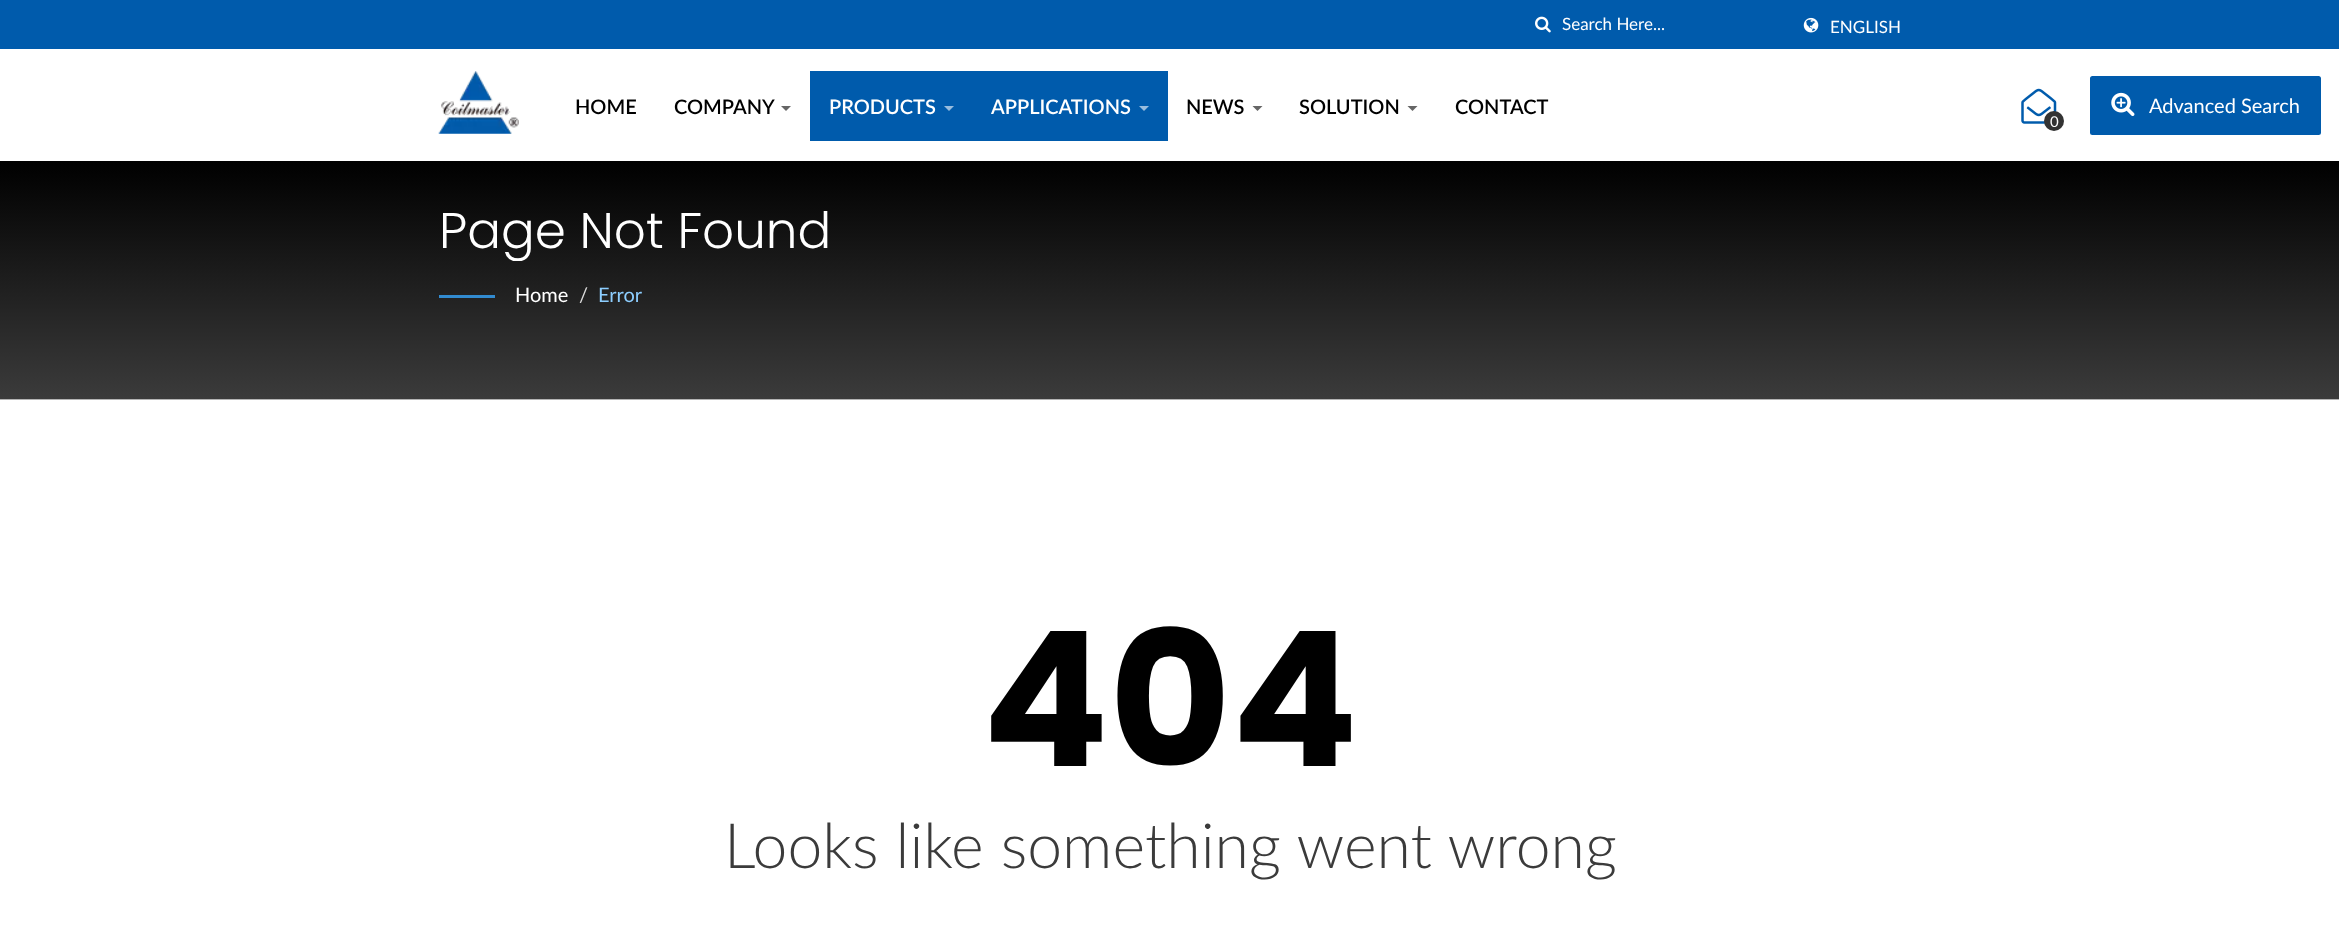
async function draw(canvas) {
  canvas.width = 2339
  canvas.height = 926
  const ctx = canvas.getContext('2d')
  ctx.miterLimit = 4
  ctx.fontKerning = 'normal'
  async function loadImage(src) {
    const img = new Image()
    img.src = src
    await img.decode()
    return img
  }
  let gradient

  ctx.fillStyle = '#fff'
  ctx.fillRect(0, 0, 2339, 926)
  ctx.fillStyle = '#005bac'
  ctx.fillRect(0, 0, 2339, 49)
  ctx.drawImage(await loadImage('image0.png'), 1535, 16, 16, 17)
  ctx.font = '17px Lato'
  ctx.fillStyle = '#fff'
  ctx.fillText('Search Here...', 1562, 30)
  ctx.drawImage(await loadImage('image1.png'), 1803, 17, 16, 16)
  ctx.fillText('ENGLISH', 1830, 33)
  ctx.drawImage(await loadImage('image2.png'), 438, 71, 81, 63)
  ctx.font = '600 20px Lato'
  ctx.fillStyle = '#000'
  ctx.fillText('HOME', 575, 114)
  ctx.fillText('COMPANY', 674, 114)
  ctx.fillStyle = '#666'
  ctx.beginPath()
  ctx.moveTo(781, 106)
  ctx.lineTo(791, 106)
  ctx.lineTo(786, 111)
  ctx.closePath()
  ctx.fill()
  ctx.fillStyle = '#005bac'
  ctx.fillRect(810, 71, 358, 70)
  ctx.fillStyle = '#fff'
  ctx.fillText('PRODUCTS', 829, 114)
  ctx.fillStyle = '#99bdde'
  ctx.beginPath()
  ctx.moveTo(944, 106)
  ctx.lineTo(954, 106)
  ctx.lineTo(949, 111)
  ctx.closePath()
  ctx.fill()
  ctx.fillStyle = '#fff'
  ctx.fillText('APPLICATIONS', 991, 114)
  ctx.fillStyle = '#99bdde'
  ctx.beginPath()
  ctx.moveTo(1139, 106)
  ctx.lineTo(1149, 106)
  ctx.lineTo(1144, 111)
  ctx.closePath()
  ctx.fill()
  ctx.fillStyle = '#000'
  ctx.fillText('NEWS', 1186, 114)
  ctx.fillStyle = '#666'
  ctx.beginPath()
  ctx.moveTo(1252.5, 106)
  ctx.lineTo(1262.5, 106)
  ctx.lineTo(1257.5, 111)
  ctx.closePath()
  ctx.fill()
  ctx.fillStyle = '#000'
  ctx.fillText('SOLUTION', 1299, 114)
  ctx.fillStyle = '#666'
  ctx.beginPath()
  ctx.moveTo(1407.5, 106)
  ctx.lineTo(1417.5, 106)
  ctx.lineTo(1412.5, 111)
  ctx.closePath()
  ctx.fill()
  ctx.fillStyle = '#000'
  ctx.fillText('CONTACT', 1455, 114)
  ctx.fillStyle = '#005bac'
  ctx.beginPath()
  ctx.roundRect(2091.5, 77.5, 228, 56, 1)
  ctx.fill()
  ctx.strokeStyle = '#005bac'
  ctx.lineWidth = 3
  ctx.stroke()
  ctx.drawImage(await loadImage('image3.png'), 2111, 92, 24, 25)
  ctx.font = '20px Lato'
  ctx.fillStyle = '#fff'
  ctx.fillText('Advanced Search', 2149, 113)
  ctx.drawImage(await loadImage('image4.png'), 2021, 88, 36, 36)
  ctx.fillStyle = '#333'
  ctx.beginPath()
  ctx.arc(2054, 121, 10, 0, 2 * Math.PI)
  ctx.fill()
  ctx.font = '15px Lato'
  ctx.fillStyle = '#fff'
  ctx.fillText('0', 2050, 127)
  gradient = ctx.createLinearGradient(1170, 161, 1170, 399)
  gradient.addColorStop(0, '#000')
  gradient.addColorStop(1, '#3b3b3b')
  ctx.fillStyle = gradient
  ctx.fillRect(0, 161, 2339, 238)
  ctx.fillStyle = '#b4b4b4'
  ctx.fillRect(0, 399, 2339, 1)
  ctx.save()
  ctx.beginPath()
  ctx.rect(439, 199, 1462, 62)
  ctx.clip()
  ctx.font = '300 50px Poppins'
  ctx.fillStyle = '#fff'
  ctx.fillText('Page Not Found', 439, 248)
  ctx.restore()
  ctx.fillStyle = '#328bd0'
  ctx.fillRect(439, 295, 56, 3)
  ctx.font = '20px Lato'
  ctx.fillStyle = '#fff'
  ctx.fillText('Home', 515, 302)
  ctx.fillStyle = '#dbdbdb'
  ctx.fillText('/', 579, 302)
  ctx.fillStyle = '#8dceff'
  ctx.fillText('Error', 598, 302)
  ctx.font = 'bold 187.5px Poppins'
  ctx.fillStyle = '#000'
  ctx.fillText('404', 982, 766)
  ctx.font = '300 62.5px Lato'
  ctx.fillStyle = '#3b3b3b'
  ctx.fillText('Looks like something went wrong', 724, 868)
}

draw(document.querySelector('canvas'))
